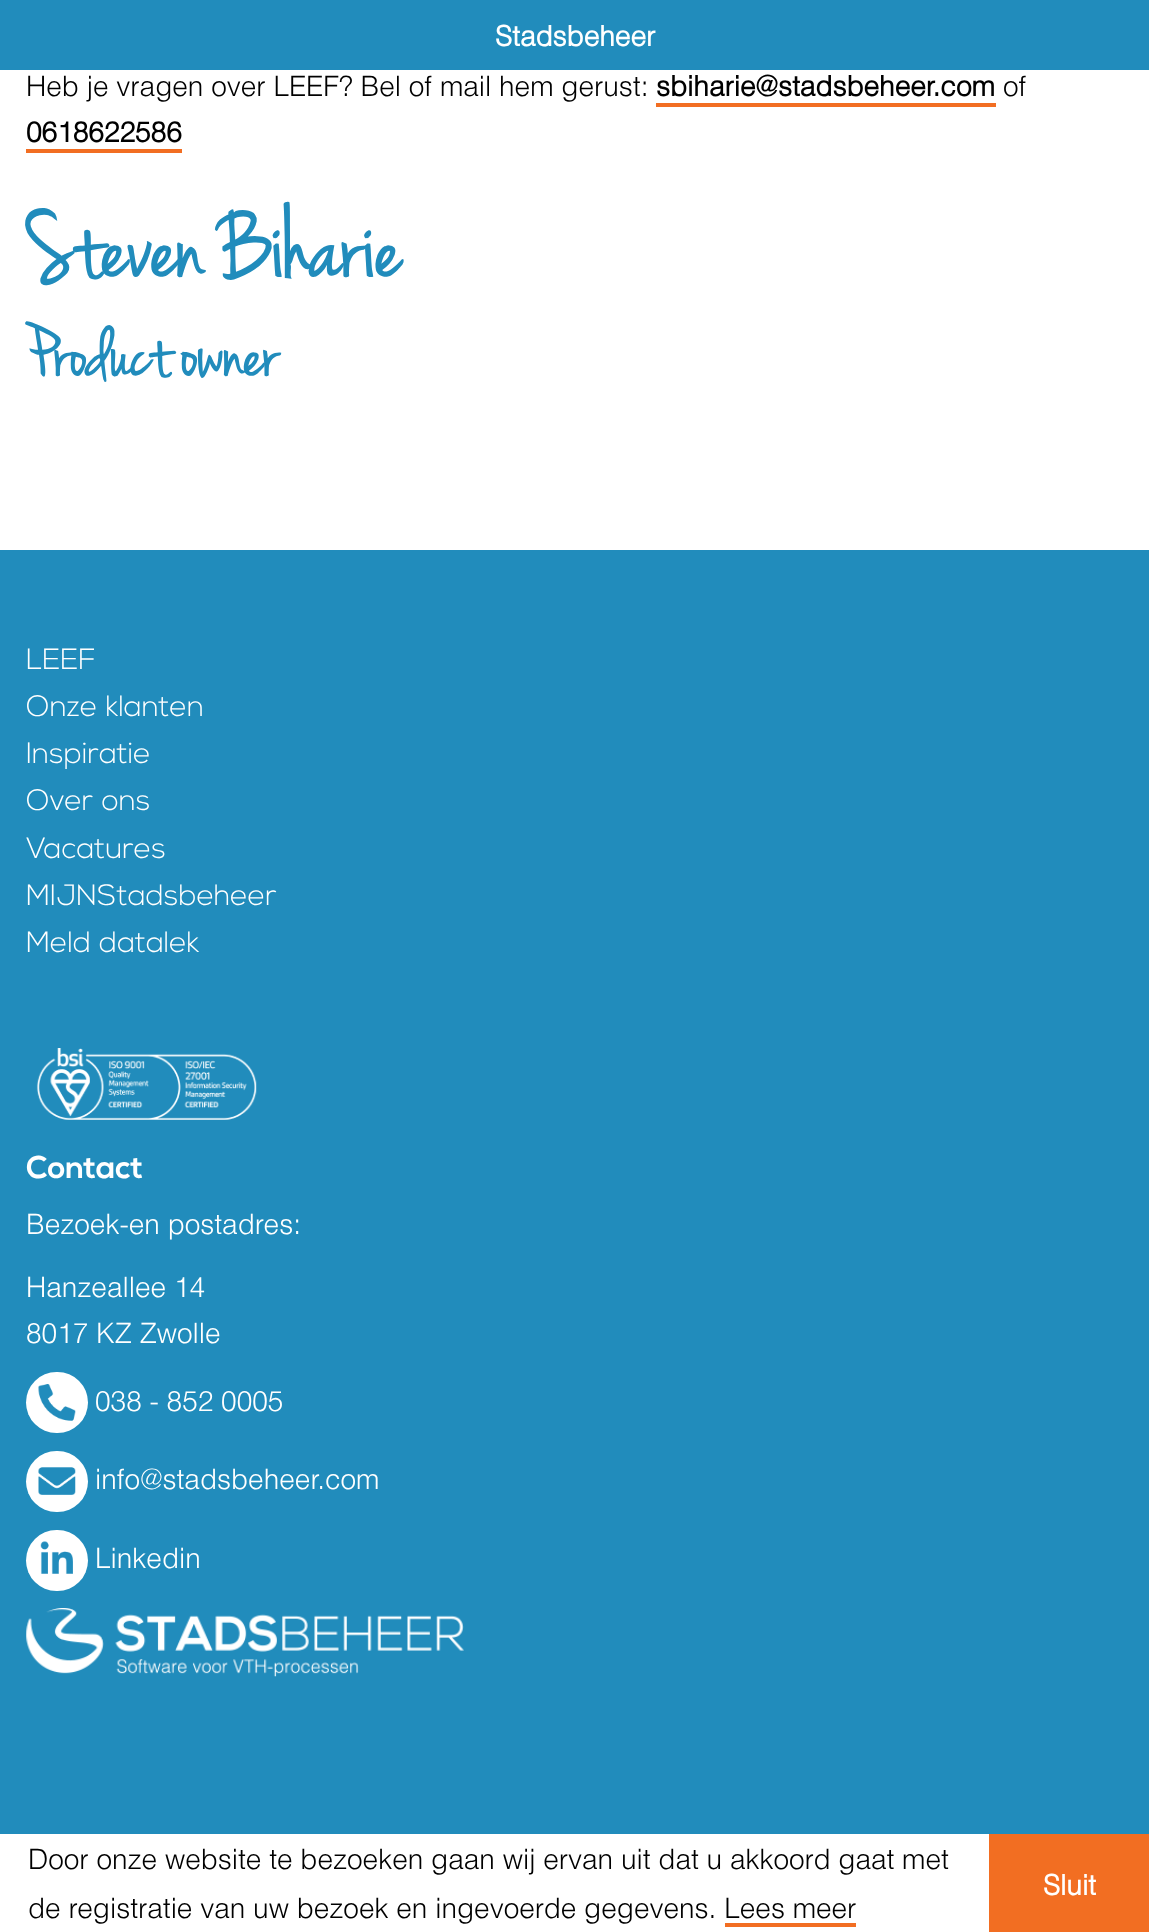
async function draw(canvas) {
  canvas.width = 1149
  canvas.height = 1932
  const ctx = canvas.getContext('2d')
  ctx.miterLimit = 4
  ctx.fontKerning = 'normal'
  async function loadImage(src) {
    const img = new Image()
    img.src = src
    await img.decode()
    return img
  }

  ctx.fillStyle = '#fff'
  ctx.fillRect(0, 0, 1149, 1932)
  ctx.fillStyle = '#218cbc'
  ctx.fillRect(0, 0, 1149, 70)
  ctx.font = 'bold 28px Helvetica'
  ctx.fillStyle = '#fff'
  ctx.fillText('Stadsbeheer', 495, 46)
  ctx.font = '300 28px Helvetica'
  ctx.fillStyle = '#000'
  ctx.fillText('Heb je vragen over LEEF? Bel of mail hem gerust:', 26, 96)
  ctx.font = 'bold 28px Helvetica'
  ctx.fillText('sbiharie@stadsbeheer.com', 656, 96)
  ctx.fillStyle = '#f26e22'
  ctx.fillRect(656, 103, 340, 4)
  ctx.font = '300 28px Helvetica'
  ctx.fillStyle = '#000'
  ctx.fillText('of', 1003, 96)
  ctx.font = 'bold 28px Helvetica'
  ctx.fillText('0618622586', 26, 142)
  ctx.fillStyle = '#f26e22'
  ctx.fillRect(26, 149, 156, 4)
  ctx.font = 'bold 70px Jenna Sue'
  ctx.fillStyle = '#218cbc'
  ctx.fillText('Steven Biharie', 26, 277)
  ctx.font = 'bold 52.5px Jenna Sue'
  ctx.fillText('Product owner', 26, 376)
  ctx.fillRect(0, 550, 1149, 1284)
  ctx.font = '300 28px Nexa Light'
  ctx.fillStyle = '#fff'
  ctx.fillText('LEEF', 26, 669)
  ctx.fillText('Onze klanten', 26, 716)
  ctx.fillText('Inspiratie', 26, 763)
  ctx.fillText('Over ons', 26, 810)
  ctx.fillText('Vacatures', 26, 858)
  ctx.fillText('MIJNStadsbeheer', 26, 905)
  ctx.fillText('Meld datalek', 26, 952)
  ctx.drawImage(await loadImage('image0.png'), 36, 1048, 221, 72)
  ctx.font = 'bold 30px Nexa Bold'
  ctx.fillText('Contact', 26, 1178)
  ctx.font = '300 28px Helvetica'
  ctx.fillText('Bezoek-en postadres:', 26, 1234)
  ctx.fillText('Hanzeallee 14', 26, 1297)
  ctx.fillText('8017 KZ Zwolle', 26, 1343)
  ctx.beginPath()
  ctx.roundRect(26, 1372, 62, 61, 30.5)
  ctx.fill()
  ctx.drawImage(await loadImage('image1.png'), 38, 1384, 38, 37)
  ctx.fillText('038 - 852 0005', 95, 1411)
  ctx.beginPath()
  ctx.roundRect(26, 1451, 62, 61, 30.5)
  ctx.fill()
  ctx.drawImage(await loadImage('image2.png'), 38, 1467, 38, 28)
  ctx.fillText('info@stadsbeheer.com', 95, 1489)
  ctx.beginPath()
  ctx.roundRect(26, 1530, 62, 61, 30.5)
  ctx.fill()
  ctx.drawImage(await loadImage('image3.png'), 40, 1541, 33, 33)
  ctx.fillText('Linkedin', 95, 1568)
  ctx.drawImage(await loadImage('image4.png'), 26, 1608, 438, 69)
  ctx.fillStyle = '#000'
  ctx.fillText('Door onze website te bezoeken gaan wij ervan uit dat u akkoord gaat met', 28, 1869)
  ctx.fillText('de registratie van uw bezoek en ingevoerde gegevens. Lees meer', 28, 1918)
  ctx.fillStyle = '#f26e22'
  ctx.fillRect(725, 1923, 131, 4)
  ctx.fillRect(989, 1834, 160, 98)
  ctx.font = 'bold 28px Helvetica'
  ctx.fillStyle = '#fff'
  ctx.fillText('Sluit', 1043, 1895)
}

draw(document.querySelector('canvas'))
